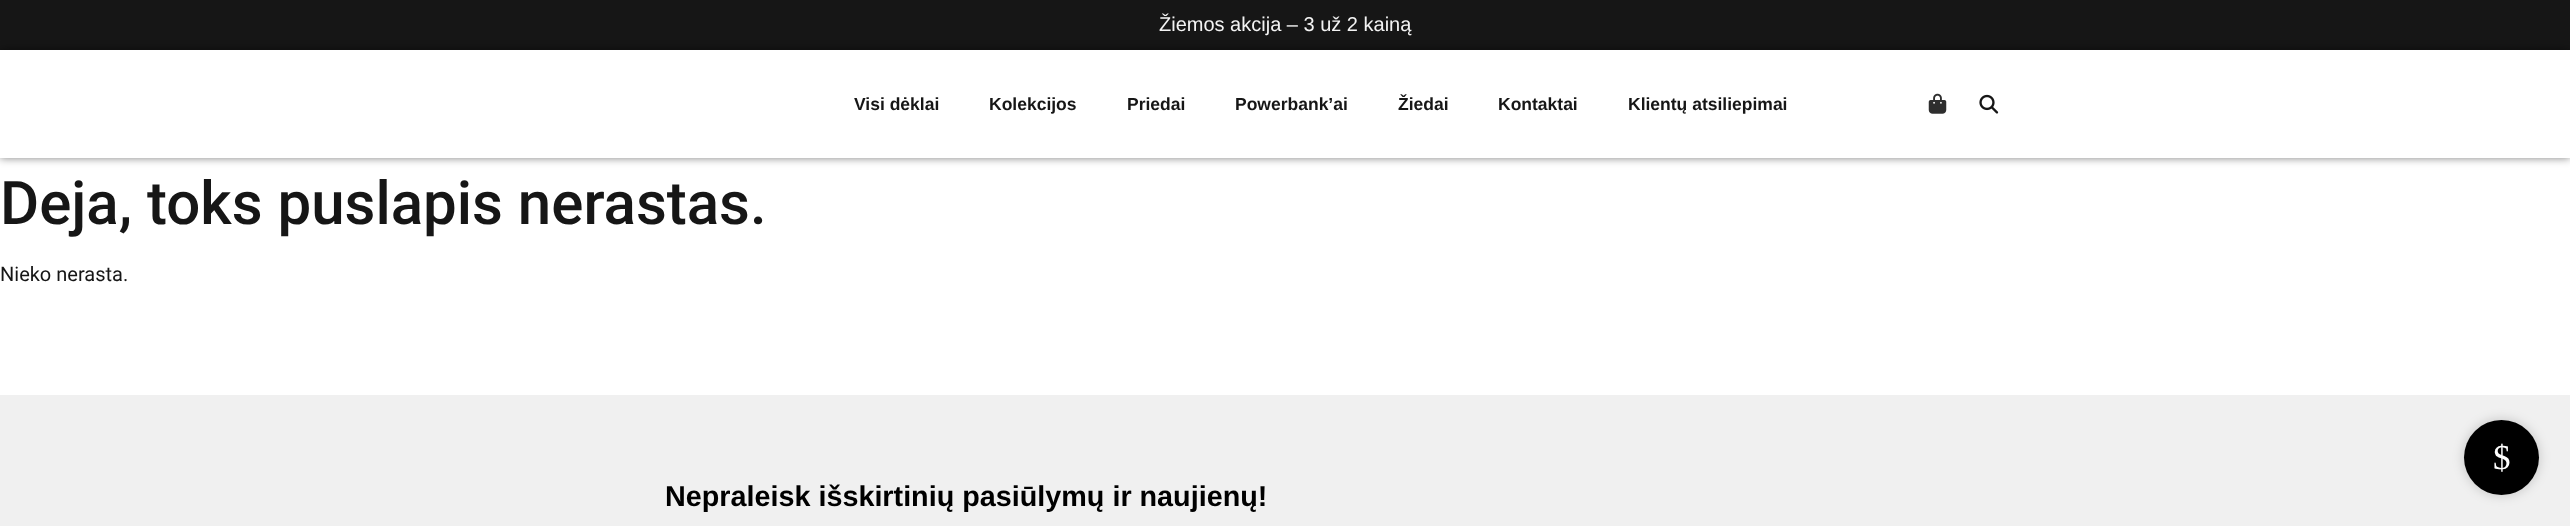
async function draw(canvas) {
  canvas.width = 2570
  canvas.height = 526
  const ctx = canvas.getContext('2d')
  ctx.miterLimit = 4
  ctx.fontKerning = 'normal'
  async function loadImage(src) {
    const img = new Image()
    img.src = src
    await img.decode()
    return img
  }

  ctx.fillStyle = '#fff'
  ctx.fillRect(0, 0, 2570, 526)
  ctx.fillStyle = '#161616'
  ctx.fillRect(0, 0, 2570, 50)
  ctx.font = '20px Liberation Sans'
  ctx.fillStyle = '#f3f3f3'
  ctx.fillText('Žiemos akcija – 3 už 2 kainą', 1159, 31)
  ctx.fillStyle = '#00000080'
  ctx.filter = 'blur(4px)'
  ctx.beginPath()
  ctx.rect(0, 50, 2570, 108)
  ctx.fill()
  ctx.filter = 'none'
  ctx.fillStyle = '#fff'
  ctx.fillRect(0, 50, 2570, 108)
  ctx.font = 'bold 17.5px Liberation Sans'
  ctx.fillStyle = '#161616'
  ctx.fillText('Visi dėklai', 854, 110)
  ctx.fillText('Kolekcijos', 989, 110)
  ctx.fillText('Priedai', 1127, 110)
  ctx.fillText('Powerbank’ai', 1235, 110)
  ctx.fillText('Žiedai', 1398, 110)
  ctx.fillText('Kontaktai', 1498, 110)
  ctx.fillText('Klientų atsiliepimai', 1628, 110)
  ctx.drawImage(await loadImage('image0.png'), 1928, 93, 19, 21)
  ctx.drawImage(await loadImage('image1.png'), 1979, 94, 20, 20)
  ctx.font = '500 60px Roboto'
  ctx.fillText('Deja, toks puslapis nerastas.', 0, 224)
  ctx.font = '20px Roboto'
  ctx.fillText('Nieko nerasta.', 0, 281)
  ctx.fillStyle = '#f0f0f0'
  ctx.fillRect(0, 395, 2570, 131)
  ctx.fillStyle = '#00000030'
  ctx.filter = 'blur(6px)'
  ctx.beginPath()
  ctx.roundRect(2464, 420, 75, 75, 37.5)
  ctx.fill()
  ctx.filter = 'none'
  ctx.fillStyle = '#000'
  ctx.beginPath()
  ctx.arc(2501.5, 457.5, 37.5, 0, 2 * Math.PI)
  ctx.fill()
  ctx.font = '35px Liberation Serif'
  ctx.fillStyle = '#fff'
  ctx.fillText('$', 2493, 469)
  ctx.font = 'bold 28.75px Liberation Sans'
  ctx.fillStyle = '#000'
  ctx.fillText('Nepraleisk išskirtinių pasiūlymų ir naujienų!', 665, 506)
}

draw(document.querySelector('canvas'))
